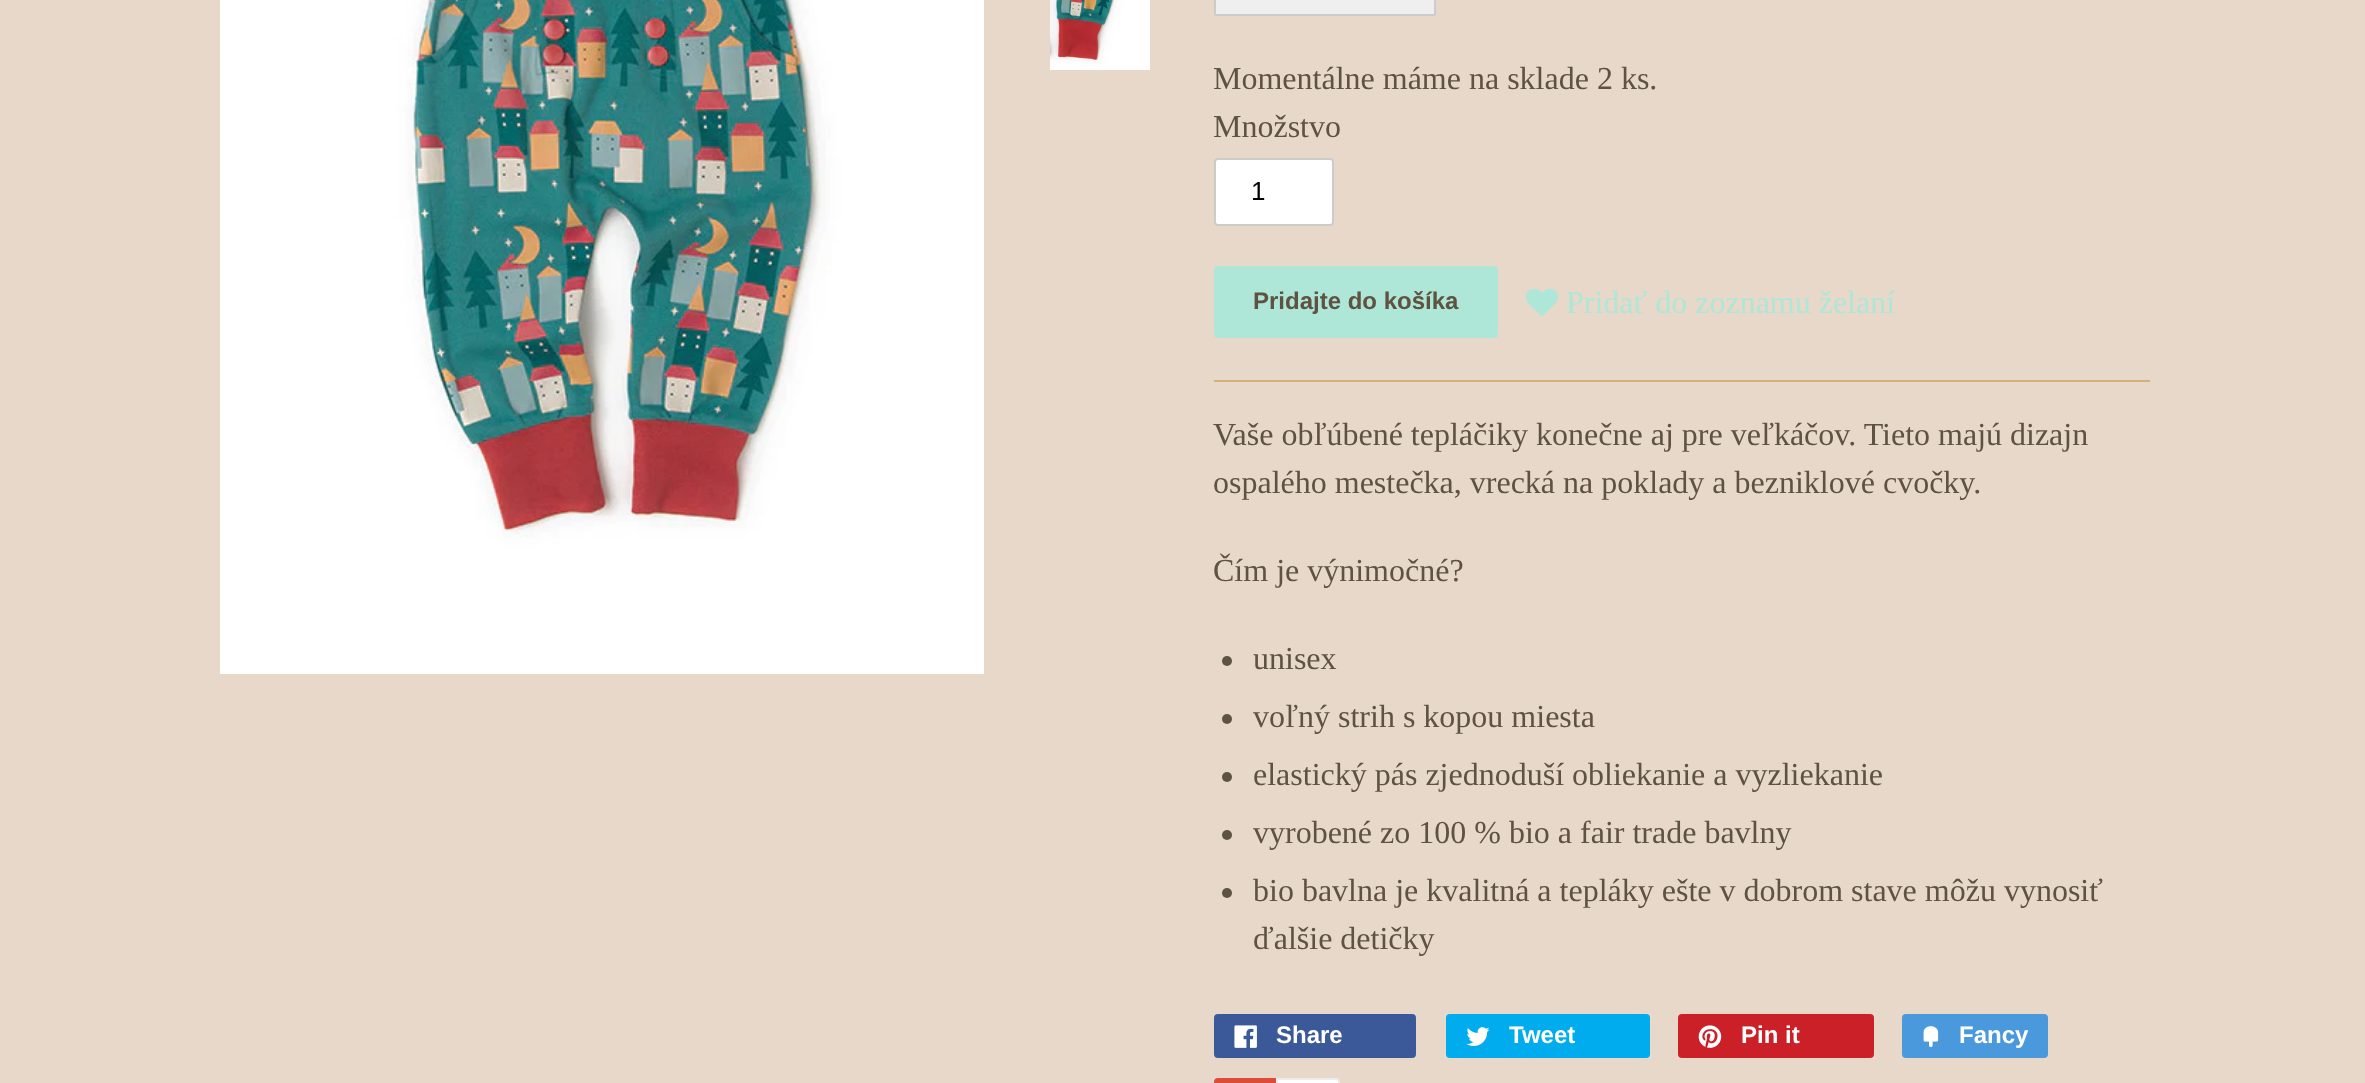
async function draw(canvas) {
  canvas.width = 2365
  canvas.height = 1083
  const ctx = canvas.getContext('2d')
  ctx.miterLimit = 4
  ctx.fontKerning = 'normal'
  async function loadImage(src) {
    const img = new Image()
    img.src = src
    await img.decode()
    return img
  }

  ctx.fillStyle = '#e7d8c9'
  ctx.fillRect(0, 0, 2365, 1083)
  ctx.drawImage(await loadImage('image0.png'), 220, 0, 764, 674)
  ctx.drawImage(await loadImage('image1.png'), 1050, 0, 100, 70)
  ctx.fillStyle = '#d4b07a'
  ctx.fillRect(1214, 380, 936, 2)
  ctx.fillStyle = '#efefef'
  ctx.beginPath()
  ctx.roundRect(1215, -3, 220, 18, 1)
  ctx.fill()
  ctx.strokeStyle = '#ccc'
  ctx.lineWidth = 2
  ctx.stroke()
  ctx.font = '32px Liberation Serif'
  ctx.fillStyle = '#5e5240'
  ctx.fillText('Momentálne máme na sklade 2 ks.', 1213, 89)
  ctx.fillText('Množstvo', 1213, 137)
  ctx.fillStyle = '#fff'
  ctx.beginPath()
  ctx.roundRect(1215, 159, 118, 66, 3)
  ctx.fill()
  ctx.stroke()
  ctx.font = '26px Liberation Sans'
  ctx.fillStyle = '#000'
  ctx.fillText('1', 1251, 200)
  ctx.fillStyle = '#aee6d8'
  ctx.beginPath()
  ctx.roundRect(1214, 266, 284, 72, 4)
  ctx.fill()
  ctx.font = 'bold 24px Liberation Sans'
  ctx.fillStyle = '#5e5240'
  ctx.fillText('Pridajte do košíka', 1253, 309)
  ctx.drawImage(await loadImage('image2.png'), 1526, 288, 32, 29)
  ctx.font = '32px Liberation Serif'
  ctx.fillStyle = '#aee6d8'
  ctx.fillText('Pridať do zoznamu želaní', 1566, 313)
  ctx.fillStyle = '#5e5240'
  ctx.fillText('Vaše obľúbené tepláčiky konečne aj pre veľkáčov. Tieto majú dizajn', 1213, 445)
  ctx.fillText('ospalého mestečka, vrecká na poklady a bezniklové cvočky.', 1213, 493)
  ctx.fillText('Čím je výnimočné?', 1213, 581)
  ctx.beginPath()
  ctx.arc(1227, 661, 5, 0, 2 * Math.PI)
  ctx.fill()
  ctx.fillText('unisex', 1253, 669)
  ctx.beginPath()
  ctx.arc(1227, 719, 5, 0, 2 * Math.PI)
  ctx.fill()
  ctx.fillText('voľný strih s kopou miesta', 1253, 727)
  ctx.beginPath()
  ctx.arc(1227, 777, 5, 0, 2 * Math.PI)
  ctx.fill()
  ctx.fillText('elastický pás zjednoduší obliekanie a vyzliekanie', 1253, 785)
  ctx.beginPath()
  ctx.arc(1227, 835, 5, 0, 2 * Math.PI)
  ctx.fill()
  ctx.fillText('vyrobené zo 100 % bio a fair trade bavlny', 1253, 843)
  ctx.beginPath()
  ctx.arc(1227, 893, 5, 0, 2 * Math.PI)
  ctx.fill()
  ctx.fillText('bio bavlna je kvalitná a tepláky ešte v dobrom stave môžu vynosiť', 1253, 901)
  ctx.fillText('ďalšie detičky', 1253, 949)
  ctx.fillStyle = '#3b5998'
  ctx.beginPath()
  ctx.roundRect(1214, 1014, 202, 44, 4)
  ctx.fill()
  ctx.drawImage(await loadImage('image3.png'), 1234, 1025, 23, 23)
  ctx.font = 'bold 24px Liberation Sans'
  ctx.fillStyle = '#fff'
  ctx.fillText('Share', 1276, 1043)
  ctx.fillStyle = '#00aced'
  ctx.beginPath()
  ctx.roundRect(1446, 1014, 204, 44, 4)
  ctx.fill()
  ctx.drawImage(await loadImage('image4.png'), 1466, 1027, 24, 19)
  ctx.fillStyle = '#fff'
  ctx.fillText('Tweet', 1509, 1043)
  ctx.fillStyle = '#cb2027'
  ctx.beginPath()
  ctx.roundRect(1678, 1014, 196, 44, 4)
  ctx.fill()
  ctx.drawImage(await loadImage('image5.png'), 1698, 1025, 24, 23)
  ctx.fillStyle = '#fff'
  ctx.fillText('Pin it', 1741, 1043)
  ctx.fillStyle = '#4999dc'
  ctx.beginPath()
  ctx.roundRect(1902, 1014, 146, 44, 4)
  ctx.fill()
  ctx.drawImage(await loadImage('image6.png'), 1923, 1026, 16, 21)
  ctx.fillStyle = '#fff'
  ctx.fillText('Fancy', 1959, 1043)
  ctx.fillStyle = '#dd4b39'
  ctx.beginPath()
  ctx.roundRect(1214, 1078, 122, 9, 4)
  ctx.fill()
  ctx.fillStyle = '#fff'
  ctx.beginPath()
  ctx.moveTo(1277, 1079)
  ctx.lineTo(1336, 1079)
  ctx.bezierCurveTo(1337.5, 1079, 1339, 1080.5, 1339, 1082)
  ctx.lineTo(1339, 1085)
  ctx.bezierCurveTo(1339, 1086.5, 1337.5, 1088, 1336, 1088)
  ctx.lineTo(1277, 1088)
  ctx.closePath()
  ctx.fill()
  ctx.strokeStyle = '#ececec'
  ctx.stroke()
}

draw(document.querySelector('canvas'))
